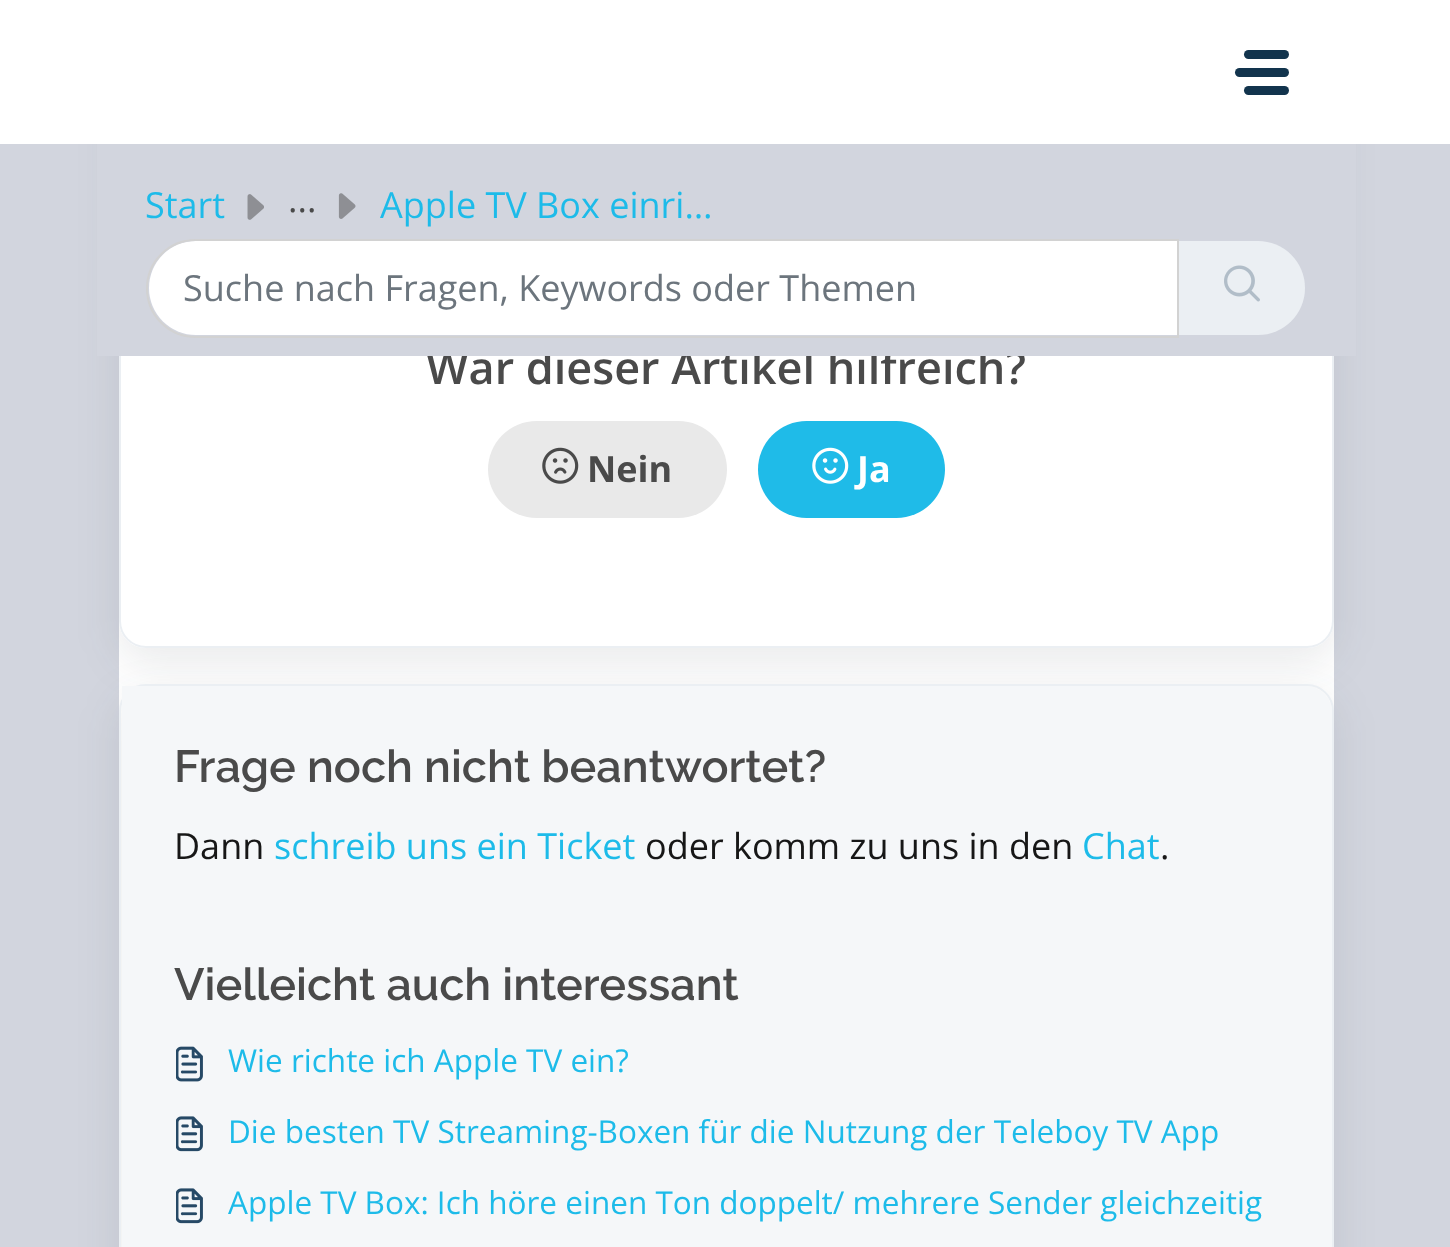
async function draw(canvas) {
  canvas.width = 1450
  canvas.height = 1247
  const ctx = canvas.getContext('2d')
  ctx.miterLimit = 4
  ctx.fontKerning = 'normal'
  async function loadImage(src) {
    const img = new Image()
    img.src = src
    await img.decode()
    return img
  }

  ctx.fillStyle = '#d2d5de'
  ctx.fillRect(0, 0, 1450, 1247)
  ctx.fillStyle = '#fff'
  ctx.fillRect(119, 356, 1215, 891)
  ctx.save()
  ctx.beginPath()
  ctx.moveTo(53, 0)
  ctx.lineTo(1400, 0)
  ctx.lineTo(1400, 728)
  ctx.lineTo(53, 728)
  ctx.closePath()
  ctx.moveTo(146, -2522)
  ctx.lineTo(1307, -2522)
  ctx.bezierCurveTo(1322, -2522, 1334, -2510, 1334, -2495)
  ctx.lineTo(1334, 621)
  ctx.bezierCurveTo(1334, 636, 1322, 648, 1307, 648)
  ctx.lineTo(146, 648)
  ctx.bezierCurveTo(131, 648, 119, 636, 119, 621)
  ctx.lineTo(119, -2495)
  ctx.bezierCurveTo(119, -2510, 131, -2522, 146, -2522)
  ctx.closePath()
  ctx.clip('evenodd')
  ctx.fillStyle = '#27313a1a'
  ctx.filter = 'blur(21.5px)'
  ctx.beginPath()
  ctx.roundRect(119, -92, 1215, 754, 27)
  ctx.fill()
  ctx.filter = 'none'
  ctx.restore()
  ctx.beginPath()
  ctx.roundRect(120, -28, 1213, 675, 26)
  ctx.strokeStyle = '#ebeff3'
  ctx.lineWidth = 2
  ctx.stroke()
  ctx.fillRect(0, 0, 1450, 144)
  ctx.fillStyle = '#12344d'
  ctx.beginPath()
  ctx.roundRect(1244, 50, 45, 9, 4.5)
  ctx.fill()
  ctx.beginPath()
  ctx.roundRect(1235, 68, 54, 9, 4.5)
  ctx.fill()
  ctx.beginPath()
  ctx.roundRect(1244, 86, 45, 9, 4.5)
  ctx.fill()
  ctx.font = '600 45px Open Sans'
  ctx.fillStyle = '#4a4a4a'
  ctx.fillText('War dieser Artikel hilfreich?', 426, 384)
  ctx.fillStyle = '#d2d5de'
  ctx.fillRect(97, 144, 1259, 212)
  ctx.font = '36px Open Sans'
  ctx.fillStyle = '#1dbbe9'
  ctx.fillText('Start', 145, 218)
  ctx.drawImage(await loadImage('image0.png'), 247, 194, 17, 26)
  ctx.fillStyle = '#4a4a4a'
  ctx.fillText('...', 288, 212)
  ctx.drawImage(await loadImage('image1.png'), 338, 193, 18, 26)
  ctx.fillStyle = '#1dbbe9'
  ctx.fillText('Apple TV Box einri…', 380, 218)
  ctx.fillStyle = '#fff'
  ctx.beginPath()
  ctx.roundRect(149, 241, 1028, 94, [47, 0, 0, 47])
  ctx.fill()
  ctx.beginPath()
  ctx.roundRect(147, 240, 1031, 97, [48.5, 0, 0, 48.5])
  ctx.strokeStyle = '#d2d2d2'
  ctx.stroke()
  ctx.fillStyle = '#6c757d'
  ctx.fillText('Suche nach Fragen, Keywords oder Themen', 183, 301)
  ctx.fillStyle = '#ebeff3'
  ctx.beginPath()
  ctx.roundRect(1179, 241, 126, 94, [0, 47, 47, 0])
  ctx.fill()
  ctx.drawImage(await loadImage('image2.png'), 1224, 265, 36, 37)
  ctx.fillStyle = '#e9e9e9'
  ctx.beginPath()
  ctx.roundRect(488, 421, 239, 97, 48.5)
  ctx.fill()
  ctx.drawImage(await loadImage('image3.png'), 542, 447, 37, 37)
  ctx.font = 'bold 36px Open Sans'
  ctx.fillStyle = '#4a4a4a'
  ctx.fillText('Nein', 587, 482)
  ctx.fillStyle = '#1fbbe8'
  ctx.beginPath()
  ctx.roundRect(758, 421, 187, 97, 48.5)
  ctx.fill()
  ctx.drawImage(await loadImage('image4.png'), 812, 447, 37, 37)
  ctx.fillStyle = '#fff'
  ctx.fillText('Ja', 857, 482)
  ctx.fillStyle = '#27313a1a'
  ctx.filter = 'blur(21.5px)'
  ctx.beginPath()
  ctx.roundRect(119, 698, 1215, 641, 27)
  ctx.fill()
  ctx.filter = 'none'
  ctx.beginPath()
  ctx.roundRect(120, 685, 1213, 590, 26)
  ctx.strokeStyle = '#ebeff3'
  ctx.stroke()
  ctx.fillStyle = '#f5f7f9'
  ctx.beginPath()
  ctx.moveTo(122, 686)
  ctx.lineTo(1305, 686)
  ctx.bezierCurveTo(1320, 686, 1332, 698, 1332, 713)
  ctx.lineTo(1332, 1247)
  ctx.bezierCurveTo(1332, 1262, 1320, 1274, 1305, 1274)
  ctx.lineTo(122, 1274)
  ctx.closePath()
  ctx.fill()
  ctx.font = '600 45px Raleway'
  ctx.fillStyle = '#4a4a4a'
  ctx.fillText('Frage noch nicht beantwortet?', 174, 782)
  ctx.font = '36px Open Sans'
  ctx.fillStyle = '#171717'
  ctx.fillText('Dann', 174, 859)
  ctx.fillStyle = '#1dbbe9'
  ctx.fillText('schreib uns ein Ticket', 274, 859)
  ctx.fillStyle = '#171717'
  ctx.fillText('oder komm zu uns in den', 645, 859)
  ctx.fillStyle = '#1dbbe9'
  ctx.fillText('Chat', 1082, 859)
  ctx.fillStyle = '#171717'
  ctx.fillText('.', 1160, 859)
  ctx.font = '600 45px Raleway'
  ctx.fillStyle = '#4a4a4a'
  ctx.fillText('Vielleicht auch interessant', 174, 1000)
  ctx.drawImage(await loadImage('image5.png'), 176, 1046, 27, 36)
  ctx.font = '31.5px Open Sans'
  ctx.fillStyle = '#1dbbe9'
  ctx.fillText('Wie richte ich Apple TV ein?', 228, 1072)
  ctx.drawImage(await loadImage('image6.png'), 176, 1116, 27, 36)
  ctx.fillText('Die besten TV Streaming-Boxen für die Nutzung der Teleboy TV App', 228, 1143)
  ctx.drawImage(await loadImage('image6.png'), 176, 1188, 27, 36)
  ctx.fillText('Apple TV Box: Ich höre einen Ton doppelt/ mehrere Sender gleichzeitig', 228, 1214)
}

draw(document.querySelector('canvas'))
